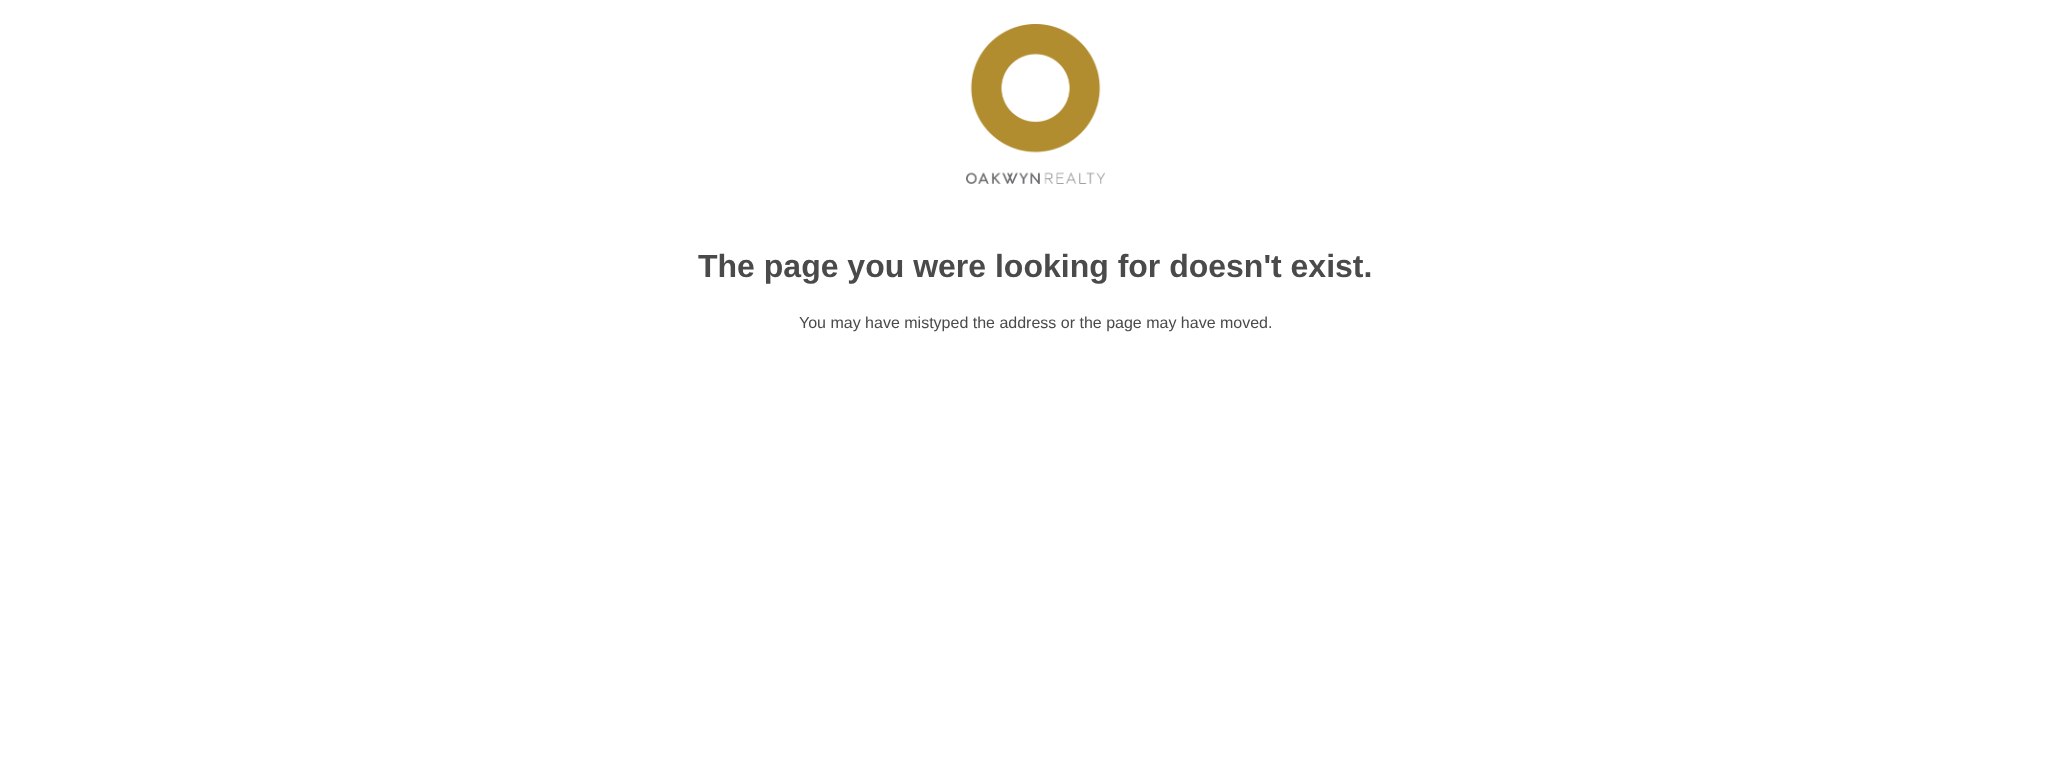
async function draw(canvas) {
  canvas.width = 2071
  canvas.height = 768
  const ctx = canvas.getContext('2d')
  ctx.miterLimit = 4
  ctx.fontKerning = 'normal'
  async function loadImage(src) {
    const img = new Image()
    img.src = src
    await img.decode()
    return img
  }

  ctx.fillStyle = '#fff'
  ctx.fillRect(0, 0, 2071, 768)
  ctx.drawImage(await loadImage('image0.png'), 966, 24, 139, 160)
  ctx.font = 'bold 32px Liberation Sans'
  ctx.fillStyle = '#4a4a4a'
  ctx.fillText('The page you were looking for doesn\'t exist.', 698, 277)
  ctx.font = '16px Liberation Sans'
  ctx.fillText('You may have mistyped the address or the page may have moved.', 799, 328)
}

draw(document.querySelector('canvas'))
